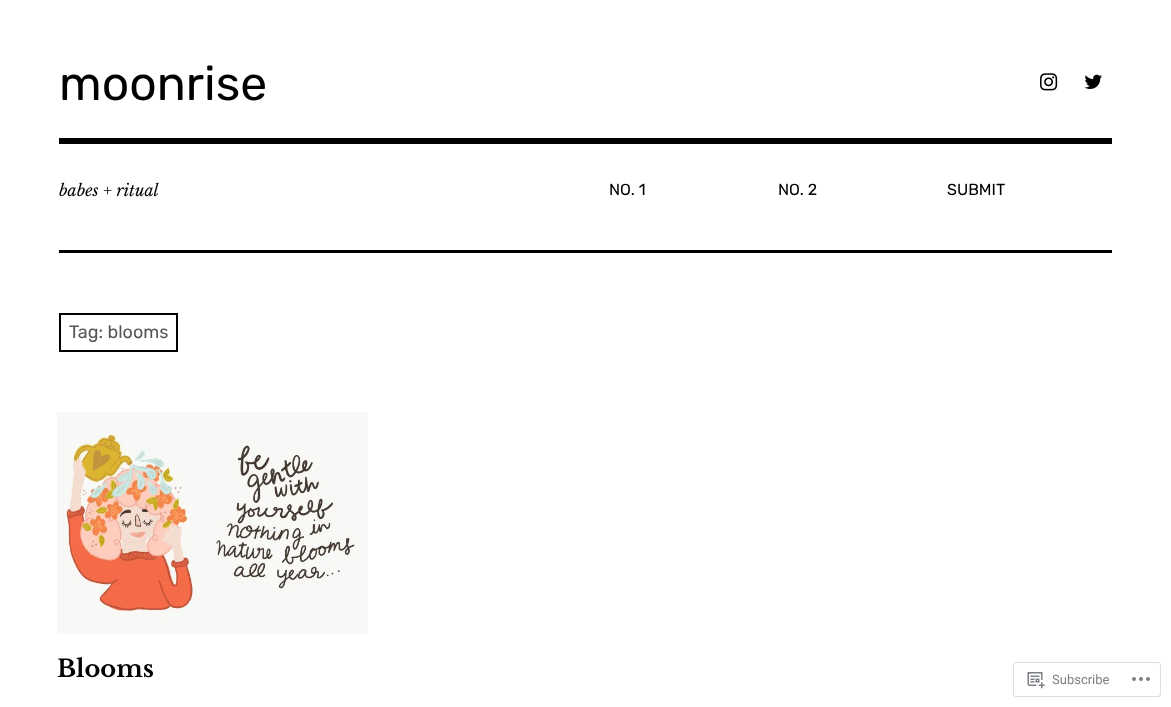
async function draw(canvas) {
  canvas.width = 1171
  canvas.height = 707
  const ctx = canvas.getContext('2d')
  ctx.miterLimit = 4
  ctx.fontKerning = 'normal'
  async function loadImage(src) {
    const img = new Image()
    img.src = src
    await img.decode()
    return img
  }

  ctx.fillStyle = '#fff'
  ctx.fillRect(0, 0, 1171, 707)
  ctx.fillStyle = '#000'
  ctx.fillRect(59, 138, 1053, 6)
  ctx.font = '48px Rubik'
  ctx.fillText('moonrise', 59, 100)
  ctx.drawImage(await loadImage('image0.png'), 1040, 73, 18, 18)
  ctx.drawImage(await loadImage('image1.png'), 1084, 74, 18, 15)
  ctx.font = 'italic 16px Libre Baskerville'
  ctx.fillText('babes + ritual', 59, 196)
  ctx.font = '16px Rubik'
  ctx.fillText('NO. 1', 609, 195)
  ctx.fillText('NO. 2', 778, 195)
  ctx.fillText('SUBMIT', 947, 195)
  ctx.fillRect(59, 250, 1053, 3)
  ctx.strokeStyle = '#000'
  ctx.lineWidth = 2
  ctx.strokeRect(60, 314, 117, 37)
  ctx.font = '18px Rubik'
  ctx.fillStyle = '#555'
  ctx.fillText('Tag: blooms', 69, 338)
  ctx.drawImage(await loadImage('image2.png'), 57, 412, 311, 222)
  ctx.font = 'bold 24px Libre Baskerville'
  ctx.fillStyle = '#000'
  ctx.fillText('Blooms', 57, 677)
  ctx.beginPath()
  ctx.roundRect(1013.5, 662.5, 147, 34, 2.5)
  ctx.strokeStyle = '#dddddf'
  ctx.lineWidth = 1
  ctx.stroke()
  ctx.drawImage(await loadImage('image3.png'), 1027, 672, 18, 17)
  ctx.font = '13px Roboto'
  ctx.fillStyle = '#7b7f85'
  ctx.fillText('Subscribe', 1052, 684)
  ctx.drawImage(await loadImage('image4.png'), 1132, 677, 18, 4)
}

draw(document.querySelector('canvas'))
